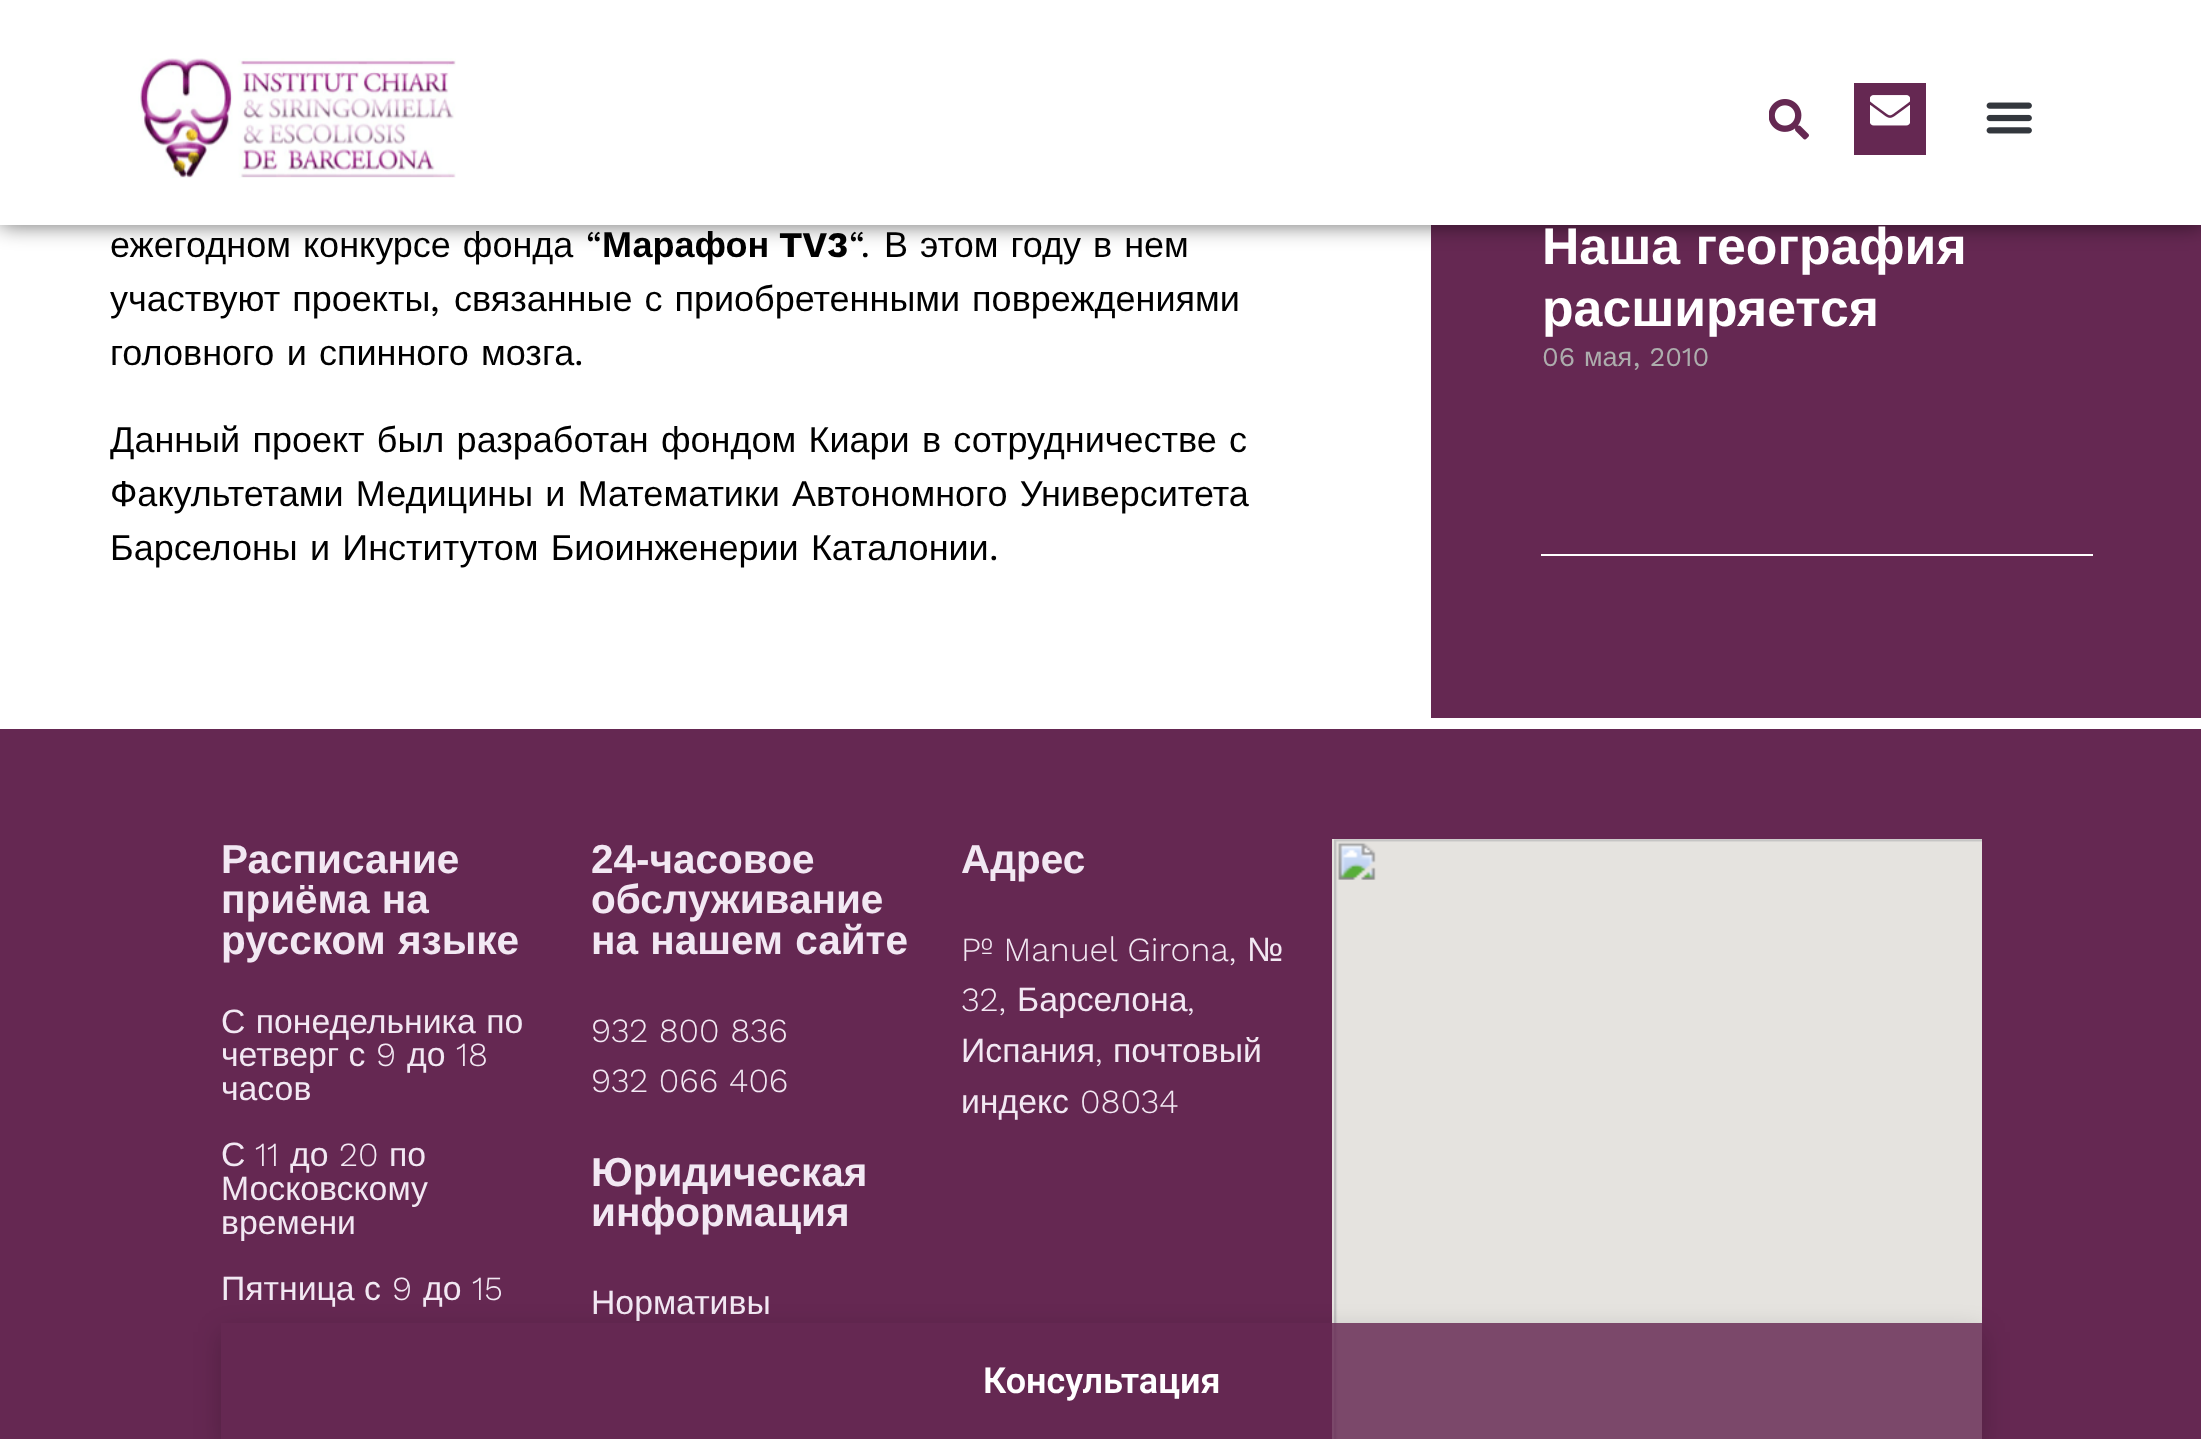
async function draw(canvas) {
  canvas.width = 2201
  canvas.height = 1439
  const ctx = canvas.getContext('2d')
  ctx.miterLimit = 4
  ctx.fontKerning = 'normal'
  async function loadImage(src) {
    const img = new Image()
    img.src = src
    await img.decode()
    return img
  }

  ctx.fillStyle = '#fff'
  ctx.fillRect(0, 0, 2201, 1439)
  ctx.fillStyle = '#652852'
  ctx.fillRect(1431, 225, 770, 493)
  ctx.fillStyle = '#00000094'
  ctx.filter = 'blur(11px)'
  ctx.beginPath()
  ctx.roundRect(0, 0, 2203, 225, 2)
  ctx.fill()
  ctx.filter = 'none'
  ctx.fillStyle = '#fff'
  ctx.fillRect(0, 0, 2201, 225)
  ctx.drawImage(await loadImage('image0.png'), 138, 58, 318, 120)
  ctx.drawImage(await loadImage('image1.png'), 1769, 99, 40, 41)
  ctx.fillStyle = '#652852'
  ctx.fillRect(1854, 83, 72, 72)
  ctx.drawImage(await loadImage('image2.png'), 1870, 95, 40, 31)
  ctx.drawImage(await loadImage('image3.png'), 1986, 102, 46, 32)
  ctx.wordSpacing = '2px'
  ctx.font = '36px Liberation Sans'
  ctx.fillStyle = '#000'
  ctx.fillText('ежегодном конкурсе фонда', 110, 257)
  ctx.wordSpacing = '0px'
  ctx.font = '36px Work Sans'
  ctx.fillText('“', 586, 257)
  ctx.font = 'bold 36px Liberation Sans'
  ctx.fillText('Марафон', 602, 257)
  ctx.font = 'bold 36px Work Sans'
  ctx.fillText('TV3', 779, 257)
  ctx.font = '36px Work Sans'
  ctx.fillText('“.', 849, 257)
  ctx.wordSpacing = '2px'
  ctx.font = '36px Liberation Sans'
  ctx.fillText('В этом году в нем', 884, 257)
  ctx.fillText('участвуют проекты', 110, 311)
  ctx.wordSpacing = '0px'
  ctx.font = '36px Work Sans'
  ctx.fillText(',', 430, 311)
  ctx.wordSpacing = '2px'
  ctx.font = '36px Liberation Sans'
  ctx.fillText('связанные с приобретенными повреждениями', 454, 311)
  ctx.wordSpacing = '2.25px'
  ctx.fillText('головного и спинного мозга', 110, 365)
  ctx.wordSpacing = '0px'
  ctx.font = '36px Work Sans'
  ctx.fillText('.', 574, 365)
  ctx.wordSpacing = '2.25px'
  ctx.font = '36px Liberation Sans'
  ctx.fillText('Данный проект был разработан фондом Киари в сотрудничестве с', 110, 452)
  ctx.fillText('Факультетами Медицины и Математики Автономного Университета', 110, 506)
  ctx.fillText('Барселоны и Институтом Биоинженерии Каталонии', 110, 560)
  ctx.wordSpacing = '0px'
  ctx.font = '36px Work Sans'
  ctx.fillText('.', 989, 560)
  ctx.fillStyle = '#fff'
  ctx.fillRect(1541, 554, 552, 2)
  ctx.wordSpacing = '1px'
  ctx.font = 'bold 51.75px Liberation Sans'
  ctx.fillText('Наша география', 1542, 264)
  ctx.wordSpacing = '0px'
  ctx.fillText('расширяется', 1542, 326)
  ctx.font = '27px Work Sans'
  ctx.fillStyle = '#adadad'
  ctx.fillText('06', 1542, 366)
  ctx.font = '27px Liberation Sans'
  ctx.fillText('мая', 1584, 366)
  ctx.font = '27px Work Sans'
  ctx.fillText(', 2010', 1633, 366)
  ctx.fillStyle = '#652852'
  ctx.fillRect(0, 729, 2201, 710)
  ctx.font = 'bold 40.5px Liberation Sans'
  ctx.fillStyle = '#f2e8f3'
  ctx.fillText('Расписание', 221, 873)
  ctx.wordSpacing = '1px'
  ctx.fillText('приёма на', 221, 913)
  ctx.fillText('русском языке', 221, 954)
  ctx.font = '33.75px Liberation Sans'
  ctx.fillText('С понедельника по', 221, 1033)
  ctx.wordSpacing = '0px'
  ctx.fillText('четверг с', 221, 1066)
  ctx.font = '300 33.75px Work Sans'
  ctx.fillText('9', 376, 1066)
  ctx.font = '33.75px Liberation Sans'
  ctx.fillText('до', 407, 1066)
  ctx.font = '300 33.75px Work Sans'
  ctx.fillText('18', 456, 1066)
  ctx.font = '33.75px Liberation Sans'
  ctx.fillText('часов', 221, 1100)
  ctx.fillText('С', 221, 1166)
  ctx.font = '300 33.75px Work Sans'
  ctx.fillText('11', 255, 1166)
  ctx.font = '33.75px Liberation Sans'
  ctx.fillText('до', 290, 1166)
  ctx.font = '300 33.75px Work Sans'
  ctx.fillText('20', 339, 1166)
  ctx.font = '33.75px Liberation Sans'
  ctx.fillText('по', 389, 1166)
  ctx.fillText('Московскому', 221, 1200)
  ctx.fillText('времени', 221, 1234)
  ctx.fillText('Пятница с', 221, 1300)
  ctx.font = '300 33.75px Work Sans'
  ctx.fillText('9', 392, 1300)
  ctx.font = '33.75px Liberation Sans'
  ctx.fillText('до', 423, 1300)
  ctx.font = '300 33.75px Work Sans'
  ctx.fillText('15', 472, 1300)
  ctx.font = 'bold 40.5px Liberation Sans'
  ctx.fillText('24-часовое', 591, 873)
  ctx.fillText('обслуживание', 591, 913)
  ctx.wordSpacing = '1px'
  ctx.fillText('на нашем сайте', 591, 954)
  ctx.wordSpacing = '0px'
  ctx.font = '300 33.75px Work Sans'
  ctx.fillText('932 800 836', 591, 1042)
  ctx.fillText('932 066 406', 591, 1092)
  ctx.font = 'bold 40.5px Liberation Sans'
  ctx.fillText('Юридическая', 591, 1186)
  ctx.fillText('информация', 591, 1226)
  ctx.font = '33.75px Liberation Sans'
  ctx.fillText('Нормативы', 591, 1314)
  ctx.font = 'bold 40.5px Liberation Sans'
  ctx.fillText('Адрес', 961, 873)
  ctx.font = '300 33.75px Work Sans'
  ctx.fillText('Pº Manuel Girona,', 961, 961)
  ctx.font = '33.75px Liberation Sans'
  ctx.fillText('№', 1247, 961)
  ctx.font = '300 33.75px Work Sans'
  ctx.fillText('32,', 961, 1011)
  ctx.font = '33.75px Liberation Sans'
  ctx.fillText('Барселона', 1017, 1011)
  ctx.font = '300 33.75px Work Sans'
  ctx.fillText(',', 1187, 1011)
  ctx.font = '33.75px Liberation Sans'
  ctx.fillText('Испания', 961, 1062)
  ctx.font = '300 33.75px Work Sans'
  ctx.fillText(',', 1095, 1062)
  ctx.font = '33.75px Liberation Sans'
  ctx.fillText('почтовый', 1113, 1062)
  ctx.fillText('индекс', 961, 1113)
  ctx.font = '300 33.75px Work Sans'
  ctx.fillText('08034', 1080, 1113)
  ctx.drawImage(await loadImage('image4.png'), 1332, 839, 650, 600)
  ctx.save()
  ctx.beginPath()
  ctx.moveTo(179, 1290)
  ctx.lineTo(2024, 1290)
  ctx.lineTo(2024, 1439)
  ctx.lineTo(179, 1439)
  ctx.closePath()
  ctx.moveTo(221, 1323)
  ctx.lineTo(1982, 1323)
  ctx.lineTo(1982, 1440)
  ctx.lineTo(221, 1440)
  ctx.closePath()
  ctx.clip('evenodd')
  ctx.fillStyle = '#00000033'
  ctx.filter = 'blur(13.5px)'
  ctx.beginPath()
  ctx.rect(221, 1332, 1761, 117)
  ctx.fill()
  ctx.filter = 'none'
  ctx.restore()
  ctx.fillStyle = '#652852d4'
  ctx.fillRect(1332, 1323, 650, 116)
  ctx.font = '600 36px Roboto'
  ctx.fillStyle = '#fff'
  ctx.fillText('Консультация', 983, 1393)
}

draw(document.querySelector('canvas'))
